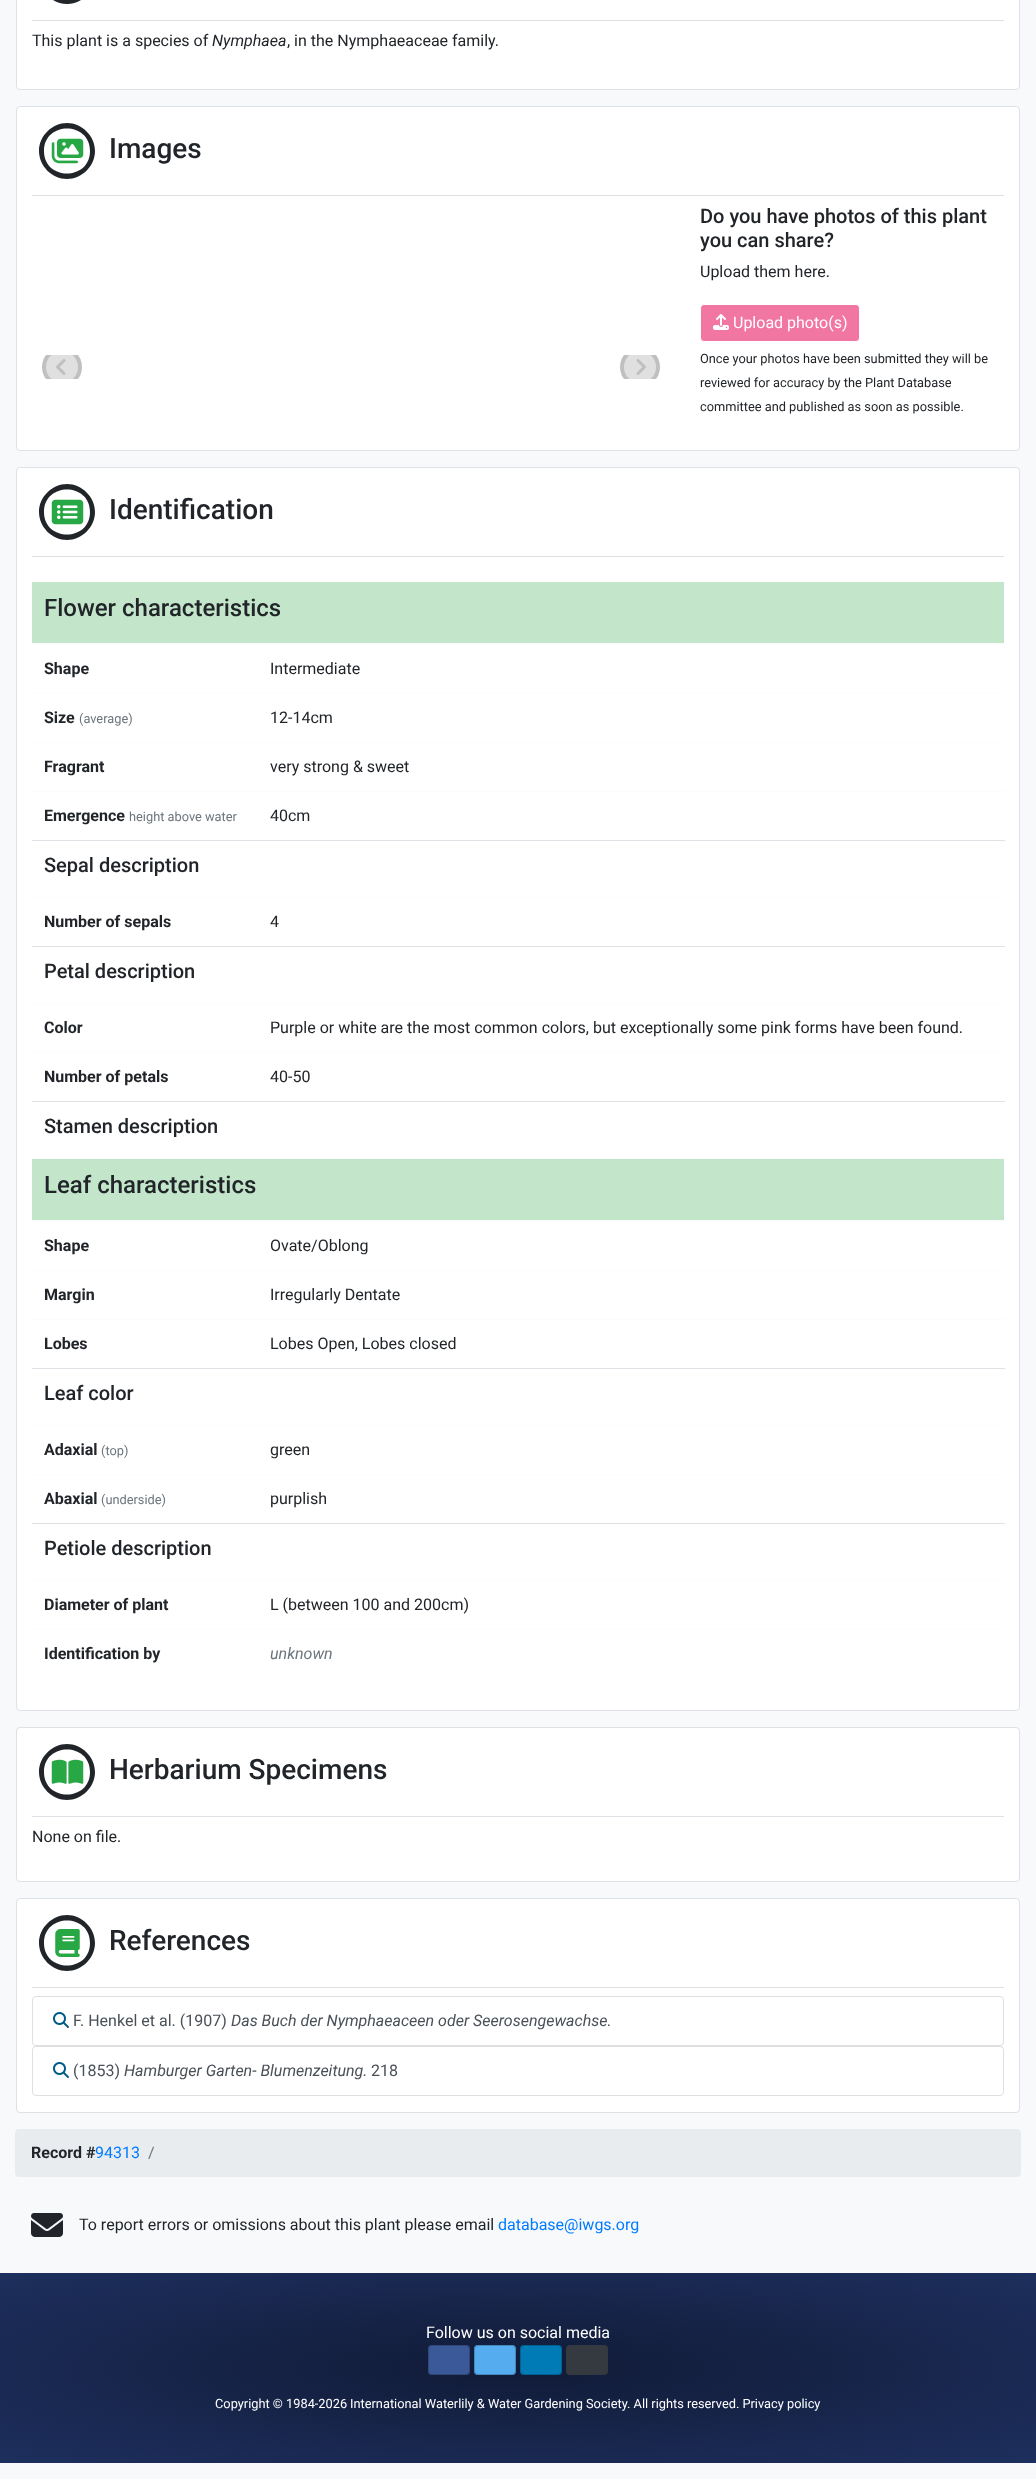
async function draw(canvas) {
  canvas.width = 1036
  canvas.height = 2479
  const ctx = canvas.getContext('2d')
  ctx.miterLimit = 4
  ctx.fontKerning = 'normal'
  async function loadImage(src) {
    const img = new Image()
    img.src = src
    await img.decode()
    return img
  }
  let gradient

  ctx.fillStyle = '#f8f9fa'
  ctx.fillRect(0, 0, 1036, 2479)
  ctx.fillStyle = '#fff'
  ctx.beginPath()
  ctx.roundRect(16.5, -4.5, 1003, 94, 3.5)
  ctx.fill()
  ctx.strokeStyle = '#dee2e6'
  ctx.stroke()
  ctx.fillStyle = '#dee2e6'
  ctx.fillRect(32, 20, 972, 1)
  ctx.fillStyle = '#212529'
  ctx.beginPath()
  ctx.moveTo(90, -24)
  ctx.bezierCurveTo(90, -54, 44, -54, 44, -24)
  ctx.bezierCurveTo(44, 6, 90, 6, 90, -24)
  ctx.closePath()
  ctx.moveTo(39, -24)
  ctx.bezierCurveTo(39, -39, 52, -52, 67, -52)
  ctx.bezierCurveTo(82, -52, 95, -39, 95, -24)
  ctx.bezierCurveTo(95, -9, 82, 4, 67, 4)
  ctx.bezierCurveTo(52, 4, 39, -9, 39, -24)
  ctx.closePath()
  ctx.fill()
  ctx.font = '16px Roboto'
  ctx.fillText('This plant is a species of', 32, 46)
  ctx.font = 'italic 16px Roboto'
  ctx.fillText('Nymphaea', 212, 46)
  ctx.font = '16px Roboto'
  ctx.fillText(', in the Nymphaeaceae family.', 287, 46)
  ctx.fillStyle = '#fff'
  ctx.beginPath()
  ctx.roundRect(16.5, 106.5, 1003, 344, 3.5)
  ctx.fill()
  ctx.stroke()
  ctx.fillStyle = '#dee2e6'
  ctx.fillRect(32, 195, 972, 1)
  ctx.fillStyle = '#212529'
  ctx.beginPath()
  ctx.moveTo(90, 151)
  ctx.bezierCurveTo(90, 121, 44, 121, 44, 151)
  ctx.bezierCurveTo(44, 181, 90, 181, 90, 151)
  ctx.closePath()
  ctx.moveTo(39, 151)
  ctx.bezierCurveTo(39, 136, 52, 123, 67, 123)
  ctx.bezierCurveTo(82, 123, 95, 136, 95, 151)
  ctx.bezierCurveTo(95, 166, 82, 179, 67, 179)
  ctx.bezierCurveTo(52, 179, 39, 166, 39, 151)
  ctx.closePath()
  ctx.fill()
  ctx.drawImage(await loadImage('image0.png'), 51, 138, 33, 26)
  ctx.font = '500 28px Roboto'
  ctx.fillText('Images', 109, 158)
  ctx.save()
  ctx.beginPath()
  ctx.rect(32, 355, 638, 24)
  ctx.clip()
  ctx.fillStyle = '#c0c0c0'
  ctx.beginPath()
  ctx.arc(62, 367, 20, 0, 2 * Math.PI)
  ctx.fill()
  ctx.restore()
  ctx.drawImage(await loadImage('image1.png'), 46, 355, 32, 24)
  ctx.save()
  ctx.beginPath()
  ctx.rect(32, 355, 638, 24)
  ctx.clip()
  ctx.fillStyle = '#c0c0c0'
  ctx.beginPath()
  ctx.arc(640, 367, 20, 0, 2 * Math.PI)
  ctx.fill()
  ctx.restore()
  ctx.drawImage(await loadImage('image2.png'), 624, 355, 32, 24)
  ctx.font = '500 20px Roboto'
  ctx.fillText('Do you have photos of this plant', 700, 223)
  ctx.fillText('you can share?', 700, 247)
  ctx.font = '16px Roboto'
  ctx.fillText('Upload them here.', 700, 277)
  ctx.fillStyle = '#f176a1'
  ctx.beginPath()
  ctx.roundRect(700.5, 304.5, 159, 37, 3.5)
  ctx.fill()
  ctx.strokeStyle = '#fff'
  ctx.stroke()
  ctx.drawImage(await loadImage('image3.png'), 713, 314, 16, 16)
  ctx.fillStyle = '#fff'
  ctx.fillText('Upload photo(s)', 733, 328)
  ctx.font = '12.8px Roboto'
  ctx.fillStyle = '#212529'
  ctx.fillText('Once your photos have been submitted they will be', 700, 363)
  ctx.fillText('reviewed for accuracy by the Plant Database', 700, 387)
  ctx.fillText('committee and published as soon as possible.', 700, 411)
  ctx.fillStyle = '#fff'
  ctx.beginPath()
  ctx.roundRect(16.5, 467.5, 1003, 1243, 3.5)
  ctx.fill()
  ctx.strokeStyle = '#dee2e6'
  ctx.stroke()
  ctx.fillStyle = '#dee2e6'
  ctx.fillRect(32, 556, 972, 1)
  ctx.fillStyle = '#212529'
  ctx.beginPath()
  ctx.moveTo(90, 512)
  ctx.bezierCurveTo(90, 482, 44, 482, 44, 512)
  ctx.bezierCurveTo(44, 542, 90, 542, 90, 512)
  ctx.closePath()
  ctx.moveTo(39, 512)
  ctx.bezierCurveTo(39, 497, 52, 484, 67, 484)
  ctx.bezierCurveTo(82, 484, 95, 497, 95, 512)
  ctx.bezierCurveTo(95, 527, 82, 540, 67, 540)
  ctx.bezierCurveTo(52, 540, 39, 527, 39, 512)
  ctx.closePath()
  ctx.fill()
  ctx.drawImage(await loadImage('image4.png'), 51, 499, 33, 26)
  ctx.font = '500 28px Roboto'
  ctx.fillText('Identification', 109, 519)
  ctx.fillStyle = '#c3e6cb'
  ctx.fillRect(32, 582, 972, 61)
  ctx.fillStyle = '#fbfcfc'
  ctx.fillRect(32, 581, 973, 1)
  ctx.fillRect(31, 643, 974, 2)
  ctx.font = '500 24px Roboto'
  ctx.fillStyle = '#212529'
  ctx.fillText('Flower characteristics', 44, 616)
  ctx.font = 'bold 16px Roboto'
  ctx.fillText('Shape', 44, 674)
  ctx.font = '16px Roboto'
  ctx.fillText('Intermediate', 270, 674)
  ctx.font = 'bold 16px Roboto'
  ctx.fillText('Size', 44, 723)
  ctx.font = '12.8px Roboto'
  ctx.fillStyle = '#6c757d'
  ctx.fillText('(average)', 79, 723)
  ctx.fillStyle = '#fbfcfc'
  ctx.fillRect(32, 693, 973, 1)
  ctx.font = '16px Roboto'
  ctx.fillStyle = '#212529'
  ctx.fillText('12-14cm', 270, 723)
  ctx.font = 'bold 16px Roboto'
  ctx.fillText('Fragrant', 44, 772)
  ctx.fillStyle = '#fbfcfc'
  ctx.fillRect(32, 742, 973, 1)
  ctx.font = '16px Roboto'
  ctx.fillStyle = '#212529'
  ctx.fillText('very strong & sweet', 270, 772)
  ctx.font = 'bold 16px Roboto'
  ctx.fillText('Emergence', 44, 821)
  ctx.font = '12.8px Roboto'
  ctx.fillStyle = '#6c757d'
  ctx.fillText('height above water', 129, 821)
  ctx.fillStyle = '#fbfcfc'
  ctx.fillRect(32, 791, 973, 1)
  ctx.font = '16px Roboto'
  ctx.fillStyle = '#212529'
  ctx.fillText('40cm', 270, 821)
  ctx.fillStyle = '#dee2e6'
  ctx.fillRect(32, 840, 973, 1)
  ctx.font = '500 20px Roboto'
  ctx.fillStyle = '#212529'
  ctx.fillText('Sepal description', 44, 872)
  ctx.font = 'bold 16px Roboto'
  ctx.fillText('Number of sepals', 44, 927)
  ctx.fillStyle = '#fbfcfc'
  ctx.fillRect(32, 897, 973, 1)
  ctx.font = '16px Roboto'
  ctx.fillStyle = '#212529'
  ctx.fillText('4', 270, 927)
  ctx.fillStyle = '#dee2e6'
  ctx.fillRect(32, 946, 973, 1)
  ctx.font = '500 20px Roboto'
  ctx.fillStyle = '#212529'
  ctx.fillText('Petal description', 44, 978)
  ctx.font = 'bold 16px Roboto'
  ctx.fillText('Color', 44, 1033)
  ctx.fillStyle = '#fbfcfc'
  ctx.fillRect(32, 1003, 973, 1)
  ctx.font = '16px Roboto'
  ctx.fillStyle = '#212529'
  ctx.fillText('Purple or white are the most common colors, but exceptionally some pink forms have been found.', 270, 1033)
  ctx.font = 'bold 16px Roboto'
  ctx.fillText('Number of petals', 44, 1082)
  ctx.fillStyle = '#fbfcfc'
  ctx.fillRect(32, 1052, 973, 1)
  ctx.font = '16px Roboto'
  ctx.fillStyle = '#212529'
  ctx.fillText('40-50', 270, 1082)
  ctx.fillStyle = '#dee2e6'
  ctx.fillRect(32, 1101, 973, 1)
  ctx.font = '500 20px Roboto'
  ctx.fillStyle = '#212529'
  ctx.fillText('Stamen description', 44, 1133)
  ctx.fillStyle = '#c3e6cb'
  ctx.fillRect(32, 1159, 972, 61)
  ctx.fillStyle = '#fbfcfc'
  ctx.fillRect(32, 1158, 973, 1)
  ctx.fillRect(31, 1220, 974, 2)
  ctx.font = '500 24px Roboto'
  ctx.fillStyle = '#212529'
  ctx.fillText('Leaf characteristics', 44, 1193)
  ctx.font = 'bold 16px Roboto'
  ctx.fillText('Shape', 44, 1251)
  ctx.font = '16px Roboto'
  ctx.fillText('Ovate/Oblong', 270, 1251)
  ctx.font = 'bold 16px Roboto'
  ctx.fillText('Margin', 44, 1300)
  ctx.fillStyle = '#fbfcfc'
  ctx.fillRect(32, 1270, 973, 1)
  ctx.font = '16px Roboto'
  ctx.fillStyle = '#212529'
  ctx.fillText('Irregularly Dentate', 270, 1300)
  ctx.font = 'bold 16px Roboto'
  ctx.fillText('Lobes', 44, 1349)
  ctx.fillStyle = '#fbfcfc'
  ctx.fillRect(32, 1319, 973, 1)
  ctx.font = '16px Roboto'
  ctx.fillStyle = '#212529'
  ctx.fillText('Lobes Open, Lobes closed', 270, 1349)
  ctx.fillStyle = '#dee2e6'
  ctx.fillRect(32, 1368, 973, 1)
  ctx.font = '500 20px Roboto'
  ctx.fillStyle = '#212529'
  ctx.fillText('Leaf color', 44, 1400)
  ctx.font = 'bold 16px Roboto'
  ctx.fillText('Adaxial', 44, 1455)
  ctx.font = '12.8px Roboto'
  ctx.fillStyle = '#6c757d'
  ctx.fillText('(top)', 101, 1455)
  ctx.fillStyle = '#fbfcfc'
  ctx.fillRect(32, 1425, 973, 1)
  ctx.font = '16px Roboto'
  ctx.fillStyle = '#212529'
  ctx.fillText('green', 270, 1455)
  ctx.font = 'bold 16px Roboto'
  ctx.fillText('Abaxial', 44, 1504)
  ctx.font = '12.8px Roboto'
  ctx.fillStyle = '#6c757d'
  ctx.fillText('(underside)', 101, 1504)
  ctx.fillStyle = '#fbfcfc'
  ctx.fillRect(32, 1474, 973, 1)
  ctx.font = '16px Roboto'
  ctx.fillStyle = '#212529'
  ctx.fillText('purplish', 270, 1504)
  ctx.fillStyle = '#dee2e6'
  ctx.fillRect(32, 1523, 973, 1)
  ctx.font = '500 20px Roboto'
  ctx.fillStyle = '#212529'
  ctx.fillText('Petiole description', 44, 1555)
  ctx.font = 'bold 16px Roboto'
  ctx.fillText('Diameter of plant', 44, 1610)
  ctx.fillStyle = '#fbfcfc'
  ctx.fillRect(32, 1580, 973, 1)
  ctx.font = '16px Roboto'
  ctx.fillStyle = '#212529'
  ctx.fillText('L (between 100 and 200cm)', 270, 1610)
  ctx.font = 'bold 16px Roboto'
  ctx.fillText('Identification by', 44, 1659)
  ctx.fillStyle = '#fbfcfc'
  ctx.fillRect(32, 1629, 973, 1)
  ctx.font = 'italic 16px Roboto'
  ctx.fillStyle = '#6c757d'
  ctx.fillText('unknown', 270, 1659)
  ctx.fillStyle = '#fff'
  ctx.beginPath()
  ctx.roundRect(16.5, 1727.5, 1003, 154, 3.5)
  ctx.fill()
  ctx.stroke()
  ctx.fillStyle = '#dee2e6'
  ctx.fillRect(32, 1816, 972, 1)
  ctx.fillStyle = '#212529'
  ctx.beginPath()
  ctx.moveTo(90, 1772)
  ctx.bezierCurveTo(90, 1742, 44, 1742, 44, 1772)
  ctx.bezierCurveTo(44, 1802, 90, 1802, 90, 1772)
  ctx.closePath()
  ctx.moveTo(39, 1772)
  ctx.bezierCurveTo(39, 1757, 52, 1744, 67, 1744)
  ctx.bezierCurveTo(82, 1744, 95, 1757, 95, 1772)
  ctx.bezierCurveTo(95, 1787, 82, 1800, 67, 1800)
  ctx.bezierCurveTo(52, 1800, 39, 1787, 39, 1772)
  ctx.closePath()
  ctx.fill()
  ctx.drawImage(await loadImage('image5.png'), 51, 1759, 33, 25)
  ctx.font = '500 28px Roboto'
  ctx.fillText('Herbarium Specimens', 109, 1779)
  ctx.font = '16px Roboto'
  ctx.fillText('None on file.', 32, 1842)
  ctx.fillStyle = '#fff'
  ctx.beginPath()
  ctx.roundRect(16.5, 1898.5, 1003, 214, 3.5)
  ctx.fill()
  ctx.stroke()
  ctx.fillStyle = '#dee2e6'
  ctx.fillRect(32, 1987, 972, 1)
  ctx.fillStyle = '#212529'
  ctx.beginPath()
  ctx.moveTo(90, 1943)
  ctx.bezierCurveTo(90, 1913, 44, 1913, 44, 1943)
  ctx.bezierCurveTo(44, 1973, 90, 1973, 90, 1943)
  ctx.closePath()
  ctx.moveTo(39, 1943)
  ctx.bezierCurveTo(39, 1928, 52, 1915, 67, 1915)
  ctx.bezierCurveTo(82, 1915, 95, 1928, 95, 1943)
  ctx.bezierCurveTo(95, 1958, 82, 1971, 67, 1971)
  ctx.bezierCurveTo(52, 1971, 39, 1958, 39, 1943)
  ctx.closePath()
  ctx.fill()
  ctx.drawImage(await loadImage('image6.png'), 55, 1929, 25, 28)
  ctx.font = '500 28px Roboto'
  ctx.fillText('References', 109, 1950)
  ctx.beginPath()
  ctx.roundRect(32.5, 1996.5, 971, 49, 3.5)
  ctx.strokeStyle = '#dfdfdf'
  ctx.stroke()
  ctx.drawImage(await loadImage('image7.png'), 53, 2012, 16, 16)
  ctx.font = '16px Roboto'
  ctx.fillStyle = '#495057'
  ctx.fillText('F. Henkel et al. (1907)', 73, 2026)
  ctx.font = 'italic 16px Roboto'
  ctx.fillText('Das Buch der Nymphaeaceen oder Seerosengewachse.', 231, 2026)
  ctx.beginPath()
  ctx.roundRect(32.5, 2046.5, 971, 49, 3.5)
  ctx.stroke()
  ctx.drawImage(await loadImage('image7.png'), 53, 2062, 16, 16)
  ctx.font = '16px Roboto'
  ctx.fillText('(1853)', 73, 2076)
  ctx.font = 'italic 16px Roboto'
  ctx.fillText('Hamburger Garten- Blumenzeitung.', 124, 2076)
  ctx.font = '16px Roboto'
  ctx.fillText('218', 371, 2076)
  ctx.fillStyle = '#e9ecef'
  ctx.beginPath()
  ctx.roundRect(15, 2129, 1006, 48, 4)
  ctx.fill()
  ctx.font = 'bold 16px Roboto'
  ctx.fillStyle = '#212529'
  ctx.fillText('Record #', 31, 2158)
  ctx.font = '16px Roboto'
  ctx.fillStyle = '#007bff'
  ctx.fillText('94313', 95, 2158)
  ctx.fillStyle = '#6c757d'
  ctx.fillText('/', 148, 2158)
  ctx.drawImage(await loadImage('image8.png'), 31, 2213, 32, 24)
  ctx.fillStyle = '#212529'
  ctx.fillText('To report errors or omissions about this plant please email', 79, 2230)
  ctx.fillStyle = '#007bff'
  ctx.fillText('database@iwgs.org', 498, 2230)
  gradient = ctx.createRadialGradient(518, 12953.31, 0, 518, 12953.31, 733)
  gradient.addColorStop(0, '#111b37')
  gradient.addColorStop(1, '#1d2f5e')
  ctx.fillStyle = gradient
  ctx.beginPath()
  ctx.rect(0, 2273, 1036, 190)
  ctx.save()
  ctx.clip()
  ctx.scale(1, 134 / 733)
  ctx.fillRect(0, 0, 1036, 13561)
  ctx.restore()
  ctx.fillStyle = '#fff'
  ctx.fillText('Follow us on social media', 426, 2338)
  ctx.fillStyle = '#3b5998'
  ctx.beginPath()
  ctx.roundRect(428, 2345, 42, 30, 4)
  ctx.fill()
  ctx.beginPath()
  ctx.roundRect(428.5, 2345.5, 41, 29, 3.5)
  ctx.strokeStyle = '#00000033'
  ctx.stroke()
  ctx.fillStyle = '#55acee'
  ctx.beginPath()
  ctx.roundRect(474, 2345, 42, 30, 4)
  ctx.fill()
  ctx.beginPath()
  ctx.roundRect(474.5, 2345.5, 41, 29, 3.5)
  ctx.stroke()
  ctx.fillStyle = '#007bb6'
  ctx.beginPath()
  ctx.roundRect(520, 2345, 42, 30, 4)
  ctx.fill()
  ctx.beginPath()
  ctx.roundRect(520.5, 2345.5, 41, 29, 3.5)
  ctx.stroke()
  ctx.fillStyle = '#343a40'
  ctx.beginPath()
  ctx.roundRect(566, 2345, 42, 30, 4)
  ctx.fill()
  ctx.font = '12.8px Roboto'
  ctx.fillStyle = '#fff'
  ctx.fillText('Copyright © 1984-2026', 215, 2408)
  ctx.fillText('International Waterlily & Water Gardening Society', 350, 2408)
  ctx.fillText('. All rights reserved. Privacy policy', 627, 2408)
}

draw(document.querySelector('canvas'))
